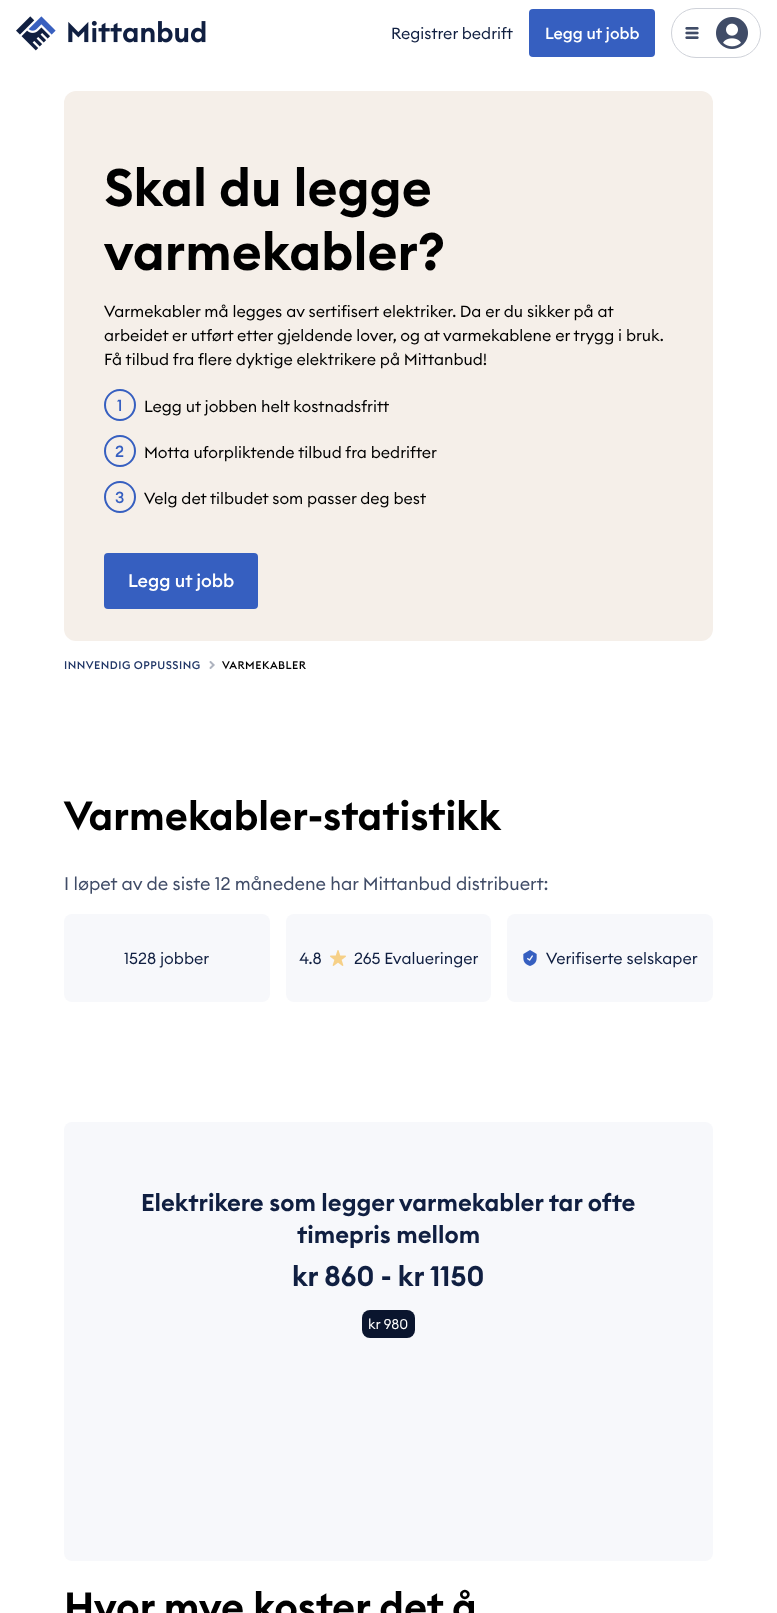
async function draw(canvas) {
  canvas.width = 777
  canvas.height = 1613
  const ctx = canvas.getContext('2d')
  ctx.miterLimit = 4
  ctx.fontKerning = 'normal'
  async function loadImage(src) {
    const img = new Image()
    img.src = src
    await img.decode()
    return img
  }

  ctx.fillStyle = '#fff'
  ctx.fillRect(0, 0, 777, 1613)
  ctx.drawImage(await loadImage('image0.png'), 16, 16, 190, 35)
  ctx.font = '16px "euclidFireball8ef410"'
  ctx.fillStyle = '#101f41'
  ctx.fillText('Registrer bedrift', 391, 39)
  ctx.fillStyle = '#365fc0'
  ctx.beginPath()
  ctx.roundRect(529, 9, 126, 48, 4)
  ctx.fill()
  ctx.font = '500 16px "euclidFireball8ef410"'
  ctx.fillStyle = '#fff'
  ctx.fillText('Legg ut jobb', 545, 39)
  ctx.beginPath()
  ctx.roundRect(671.5, 8.5, 89, 49, 24.5)
  ctx.strokeStyle = '#cfd2d9'
  ctx.stroke()
  ctx.drawImage(await loadImage('image1.png'), 685, 27, 14, 12)
  ctx.drawImage(await loadImage('image2.png'), 716, 17, 32, 32)
  ctx.fillStyle = '#f5efe9'
  ctx.beginPath()
  ctx.roundRect(64, 91, 649, 550, 12)
  ctx.fill()
  ctx.font = '600 52px "euclidFireball8ef410"'
  ctx.fillStyle = '#000'
  ctx.fillText('Skal du legge', 104, 206)
  ctx.fillText('varmekabler?', 104, 270)
  ctx.font = '16px "euclidFireball8ef410"'
  ctx.fillText('Varmekabler må legges av sertifisert elektriker. Da er du sikker på at', 104, 317)
  ctx.fillText('arbeidet er utført etter gjeldende lover, og at varmekablene er trygg i bruk.', 104, 341)
  ctx.fillText('Få tilbud fra flere dyktige elektrikere på Mittanbud!', 104, 365)
  ctx.beginPath()
  ctx.arc(120, 405, 15, 0, 2 * Math.PI)
  ctx.strokeStyle = '#365fc0'
  ctx.lineWidth = 2
  ctx.stroke()
  ctx.font = '500 16px "euclidFireball8ef410"'
  ctx.fillStyle = '#365fc0'
  ctx.fillText('1', 117, 411)
  ctx.font = '16px "euclidFireball8ef410"'
  ctx.fillStyle = '#000'
  ctx.fillText('Legg ut jobben helt kostnadsfritt', 144, 412)
  ctx.beginPath()
  ctx.arc(120, 451, 15, 0, 2 * Math.PI)
  ctx.stroke()
  ctx.font = '500 16px "euclidFireball8ef410"'
  ctx.fillStyle = '#365fc0'
  ctx.fillText('2', 115, 457)
  ctx.font = '16px "euclidFireball8ef410"'
  ctx.fillStyle = '#000'
  ctx.fillText('Motta uforpliktende tilbud fra bedrifter', 144, 458)
  ctx.beginPath()
  ctx.arc(120, 497, 15, 0, 2 * Math.PI)
  ctx.stroke()
  ctx.font = '500 16px "euclidFireball8ef410"'
  ctx.fillStyle = '#365fc0'
  ctx.fillText('3', 115, 503)
  ctx.font = '16px "euclidFireball8ef410"'
  ctx.fillStyle = '#000'
  ctx.fillText('Velg det tilbudet som passer deg best', 144, 504)
  ctx.fillStyle = '#365fc0'
  ctx.beginPath()
  ctx.roundRect(104, 553, 154, 56, 4)
  ctx.fill()
  ctx.font = '500 18px "euclidFireball8ef410"'
  ctx.fillStyle = '#fff'
  ctx.fillText('Legg ut jobb', 128, 587)
  ctx.letterSpacing = '0.5px'
  ctx.font = '500 11px "euclidFireball8ef410"'
  ctx.fillStyle = '#213767'
  ctx.fillText('INNVENDIG OPPUSSING', 64, 669)
  ctx.drawImage(await loadImage('image3.png'), 209, 661, 6, 8)
  ctx.fillStyle = '#000'
  ctx.fillText('VARMEKABLER', 222, 669)
  ctx.letterSpacing = '0px'
  ctx.font = '600 40px "euclidFireball8ef410"'
  ctx.fillText('Varmekabler-statistikk', 64, 830)
  ctx.font = '18px "euclidFireball8ef410"'
  ctx.fillStyle = '#404c67'
  ctx.fillText('I løpet av de siste 12 månedene har Mittanbud distribuert:', 64, 890)
  ctx.fillStyle = '#f7f8fb'
  ctx.beginPath()
  ctx.roundRect(64, 914, 206, 88, 8)
  ctx.fill()
  ctx.font = '16px "euclidFireball8ef410"'
  ctx.fillStyle = '#101f41'
  ctx.fillText('1528 jobber', 124, 964)
  ctx.fillStyle = '#f7f8fb'
  ctx.beginPath()
  ctx.roundRect(286, 914, 205, 88, 8)
  ctx.fill()
  ctx.fillStyle = '#101f41'
  ctx.fillText('4.8', 299, 964)
  ctx.drawImage(await loadImage('image4.png'), 330, 950, 16, 16)
  ctx.fillText('265 Evalueringer', 354, 964)
  ctx.fillStyle = '#f7f8fb'
  ctx.beginPath()
  ctx.roundRect(507, 914, 206, 88, 8)
  ctx.fill()
  ctx.drawImage(await loadImage('image5.png'), 523, 950, 14, 16)
  ctx.fillStyle = '#101f41'
  ctx.fillText('Verifiserte selskaper', 546, 964)
  ctx.fillStyle = '#f7f8fb'
  ctx.beginPath()
  ctx.roundRect(64, 1122, 649, 439, 8)
  ctx.fill()
  ctx.font = '600 24px "euclidFireball8ef410"'
  ctx.fillStyle = '#101f41'
  ctx.fillText('Elektrikere som legger varmekabler tar ofte', 141, 1211)
  ctx.fillText('timepris mellom', 297, 1243)
  ctx.font = '600 28px "euclidFireball8ef410"'
  ctx.fillText('kr 860 - kr 1150', 292, 1286)
  ctx.fillStyle = '#0a152e'
  ctx.beginPath()
  ctx.roundRect(362, 1310, 53, 28, 8)
  ctx.fill()
  ctx.font = '14px "euclidFireball8ef410"'
  ctx.fillStyle = '#fff'
  ctx.fillText('kr 980', 368, 1329)
  ctx.font = '600 40px "euclidFireball8ef410"'
  ctx.fillStyle = '#000'
  ctx.fillText('Hvor mye koster det å', 64, 1621)
}

draw(document.querySelector('canvas'))
